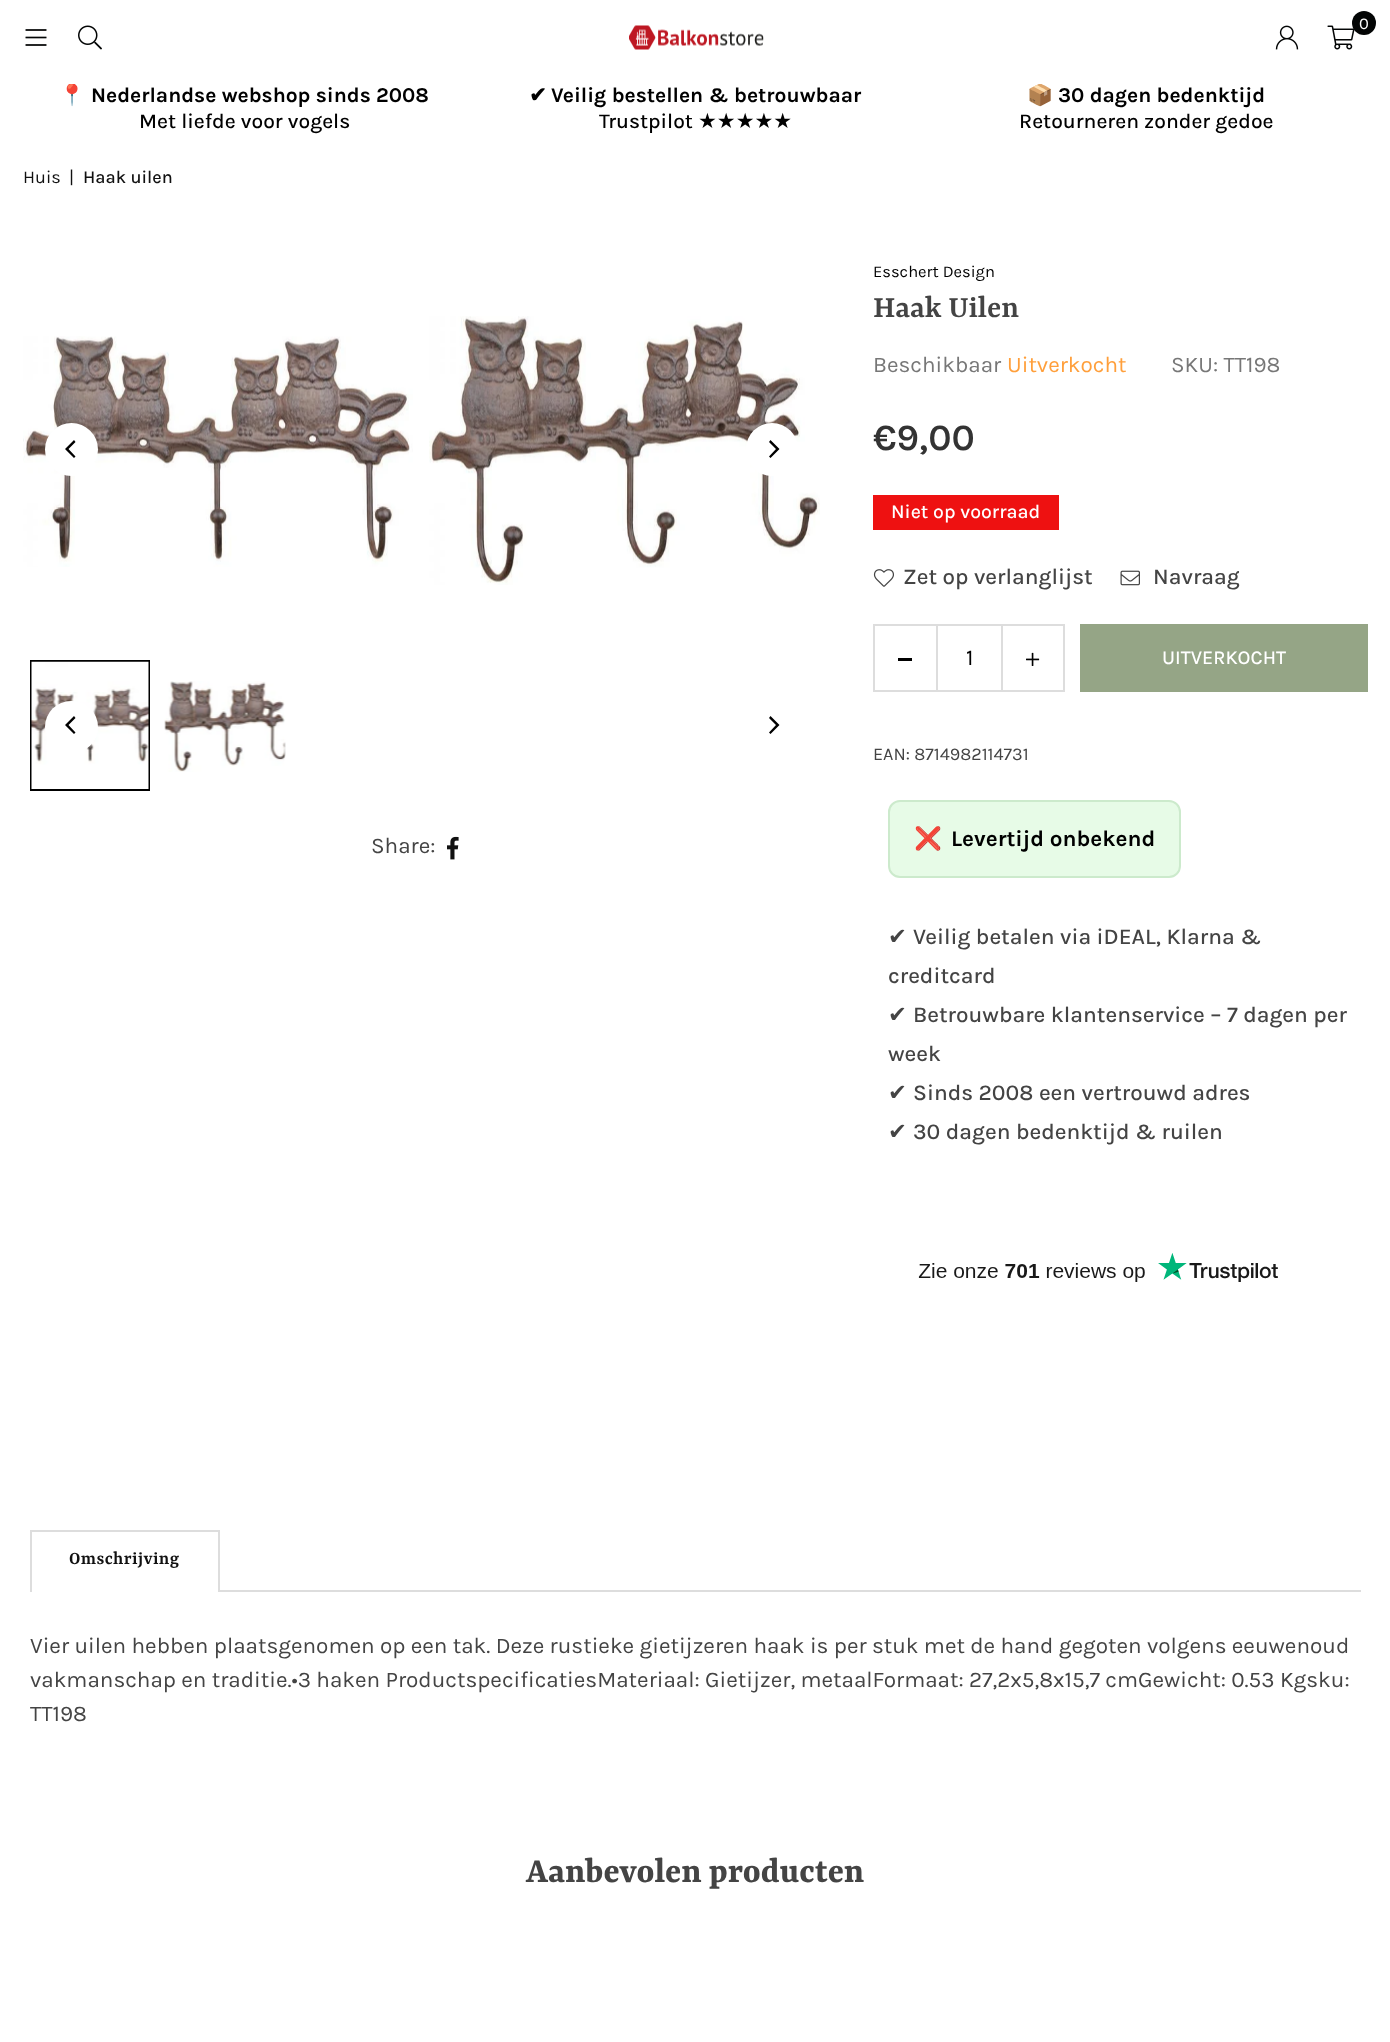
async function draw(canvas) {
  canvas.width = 1390
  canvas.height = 2042
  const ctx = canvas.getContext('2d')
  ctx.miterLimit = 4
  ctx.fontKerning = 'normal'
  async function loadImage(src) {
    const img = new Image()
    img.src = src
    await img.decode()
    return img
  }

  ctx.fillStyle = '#fff'
  ctx.fillRect(0, 0, 1390, 2042)
  ctx.drawImage(await loadImage('image0.png'), 25, 29, 22, 17)
  ctx.drawImage(await loadImage('image1.png'), 78, 25, 24, 25)
  ctx.drawImage(await loadImage('image2.png'), 629, 25, 135, 25)
  ctx.drawImage(await loadImage('image3.png'), 1275, 25, 24, 25)
  ctx.drawImage(await loadImage('image4.png'), 1327, 25, 28, 25)
  ctx.fillStyle = '#030505'
  ctx.beginPath()
  ctx.arc(1364, 23, 12, 0, 2 * Math.PI)
  ctx.fill()
  ctx.font = '16.5px Karla'
  ctx.fillStyle = '#fff'
  ctx.fillText('0', 1359, 29)
  ctx.save()
  ctx.beginPath()
  ctx.rect(20, 84, 1353, 51)
  ctx.clip()
  ctx.font = 'bold 21px Noto Color Emoji'
  ctx.fillStyle = '#000'
  ctx.fillText('📍', 59, 102)
  ctx.restore()
  ctx.font = 'bold 21px Karla'
  ctx.fillStyle = '#000'
  ctx.fillText('Nederlandse webshop sinds 2008', 91, 102)
  ctx.font = '500 21px Karla'
  ctx.fillText('Met liefde voor vogels', 139, 128)
  ctx.font = 'bold 21px DejaVu Sans'
  ctx.fillText('✔', 529, 102)
  ctx.font = 'bold 21px Karla'
  ctx.fillText('Veilig bestellen & betrouwbaar', 551, 102)
  ctx.font = '500 21px Karla'
  ctx.fillText('Trustpilot', 599, 128)
  ctx.font = '21px DejaVu Sans'
  ctx.fillText('★★★★★', 698, 128)
  ctx.save()
  ctx.beginPath()
  ctx.rect(20, 84, 1353, 51)
  ctx.clip()
  ctx.font = 'bold 21px Noto Color Emoji'
  ctx.fillText('📦', 1027, 102)
  ctx.restore()
  ctx.font = 'bold 21px Karla'
  ctx.fillText('30 dagen bedenktijd', 1058, 102)
  ctx.font = '500 21px Karla'
  ctx.fillText('Retourneren zonder gedoe', 1019, 128)
  ctx.font = '18px Karla'
  ctx.fillStyle = '#111'
  ctx.fillText('Huis', 23, 183)
  ctx.fillText('|', 69, 183)
  ctx.font = '500 18px Karla'
  ctx.fillText('Haak uilen', 83, 183)
  ctx.drawImage(await loadImage('image5.png'), 23, 336, 390, 231)
  ctx.drawImage(await loadImage('image6.png'), 429, 316, 391, 269)
  ctx.fillStyle = '#fff'
  ctx.beginPath()
  ctx.arc(71.5, 449.5, 26.5, 0, 2 * Math.PI)
  ctx.fill()
  ctx.fillStyle = '#000'
  ctx.beginPath()
  ctx.moveTo(65, 449)
  ctx.lineTo(74, 458)
  ctx.lineTo(75.5, 456.5)
  ctx.lineTo(68.5, 449)
  ctx.lineTo(75.5, 442)
  ctx.lineTo(74, 440)
  ctx.closePath()
  ctx.fill()
  ctx.fillStyle = '#fff'
  ctx.beginPath()
  ctx.roundRect(746, 423, 52, 53, 26)
  ctx.fill()
  ctx.fillStyle = '#000'
  ctx.beginPath()
  ctx.moveTo(779.5, 449)
  ctx.lineTo(770.5, 440)
  ctx.lineTo(769, 442)
  ctx.lineTo(776, 449)
  ctx.lineTo(769, 456.5)
  ctx.lineTo(770.5, 458)
  ctx.closePath()
  ctx.fill()
  ctx.strokeStyle = '#000'
  ctx.lineWidth = 2
  ctx.strokeRect(31, 661, 118, 129)
  ctx.drawImage(await loadImage('image7.png'), 31, 661, 118, 128)
  ctx.drawImage(await loadImage('image8.png'), 164, 681, 122, 91)
  ctx.fillStyle = '#fff'
  ctx.beginPath()
  ctx.roundRect(45, 701, 53, 52, 26)
  ctx.fill()
  ctx.fillStyle = '#000'
  ctx.beginPath()
  ctx.moveTo(65, 725)
  ctx.lineTo(74, 734)
  ctx.lineTo(75.5, 732.5)
  ctx.lineTo(68.5, 725)
  ctx.lineTo(75.5, 718)
  ctx.lineTo(74, 716)
  ctx.closePath()
  ctx.fill()
  ctx.beginPath()
  ctx.moveTo(779.5, 725)
  ctx.lineTo(770.5, 716)
  ctx.lineTo(769, 718)
  ctx.lineTo(776, 725)
  ctx.lineTo(769, 732.5)
  ctx.lineTo(770.5, 734)
  ctx.closePath()
  ctx.fill()
  ctx.font = '22.5px Karla'
  ctx.fillStyle = '#444'
  ctx.fillText('Share:', 371, 853)
  ctx.drawImage(await loadImage('image9.png'), 447, 836, 12, 24)
  ctx.font = '16.5px Karla'
  ctx.fillStyle = '#000'
  ctx.fillText('Esschert Design', 873, 277)
  ctx.font = '600 33px Yrsa'
  ctx.fillStyle = '#444'
  ctx.fillText('Haak Uilen', 873, 317)
  ctx.font = '22.5px Karla'
  ctx.fillStyle = '#777'
  ctx.fillText('Beschikbaar', 873, 372)
  ctx.fillStyle = '#ff9f3b'
  ctx.fillText('Uitverkocht', 1007, 372)
  ctx.fillStyle = '#777'
  ctx.fillText('SKU: TT198', 1171, 372)
  ctx.font = '600 37.5px Karla'
  ctx.fillStyle = '#333'
  ctx.fillText('€9,00', 873, 450)
  ctx.fillStyle = '#e11'
  ctx.fillRect(873, 495, 186, 35)
  ctx.font = '500 19.5px Karla'
  ctx.fillStyle = '#fff'
  ctx.fillText('Niet op voorraad', 891, 518)
  ctx.drawImage(await loadImage('image10.png'), 873, 569, 21, 18)
  ctx.font = '500 22.5px Karla'
  ctx.fillStyle = '#444'
  ctx.fillText('Zet op verlanglijst', 903, 584)
  ctx.drawImage(await loadImage('image11.png'), 1120, 570, 20, 16)
  ctx.fillText('Navraag', 1153, 584)
  ctx.strokeStyle = '#ddd'
  ctx.strokeRect(874, 625, 190, 66)
  ctx.fillStyle = '#ddd'
  ctx.fillRect(936, 626, 2, 64)
  ctx.fillStyle = '#000'
  ctx.fillRect(898, 658, 14, 3)
  ctx.font = '22.5px Karla'
  ctx.fillText('1', 966, 665)
  ctx.fillStyle = '#ddd'
  ctx.fillRect(1001, 626, 2, 64)
  ctx.drawImage(await loadImage('image12.png'), 1026, 652, 14, 14)
  ctx.fillStyle = '#95a586'
  ctx.fillRect(1080, 624, 288, 68)
  ctx.font = '500 19.5px Karla'
  ctx.fillStyle = '#fff'
  ctx.fillText('UITVERKOCHT', 1162, 664)
  ctx.font = '18px Karla'
  ctx.fillStyle = '#444'
  ctx.fillText('EAN: 8714982114731', 873, 760)
  ctx.fillStyle = '#e7fbe7'
  ctx.beginPath()
  ctx.roundRect(889, 801, 291, 76, 11)
  ctx.fill()
  ctx.strokeStyle = '#cceacc'
  ctx.stroke()
  ctx.font = '22.5px Noto Color Emoji'
  ctx.fillStyle = '#c00'
  ctx.fillText('❌', 914, 846)
  ctx.font = 'bold 22.5px Karla'
  ctx.fillStyle = '#000'
  ctx.fillText('Levertijd onbekend', 951, 846)
  ctx.font = '22.5px DejaVu Sans'
  ctx.fillStyle = '#444'
  ctx.fillText('✔', 888, 944)
  ctx.font = '500 22.5px Karla'
  ctx.fillText('Veilig betalen via iDEAL, Klarna &', 913, 944)
  ctx.fillText('creditcard', 888, 983)
  ctx.font = '22.5px DejaVu Sans'
  ctx.fillText('✔', 888, 1022)
  ctx.font = '500 22.5px Karla'
  ctx.fillText('Betrouwbare klantenservice – 7 dagen per', 913, 1022)
  ctx.fillText('week', 888, 1061)
  ctx.font = '22.5px DejaVu Sans'
  ctx.fillText('✔', 888, 1100)
  ctx.font = '500 22.5px Karla'
  ctx.fillText('Sinds 2008 een vertrouwd adres', 913, 1100)
  ctx.font = '22.5px DejaVu Sans'
  ctx.fillText('✔', 888, 1139)
  ctx.font = '500 22.5px Karla'
  ctx.fillText('30 dagen bedenktijd & ruilen', 913, 1139)
  ctx.drawImage(await loadImage('image13.png'), 918, 1253, 360, 29)
  ctx.fillStyle = '#ddd'
  ctx.fillRect(30, 1590, 1331, 2)
  ctx.fillRect(30, 1530, 189, 2)
  ctx.fillRect(218, 1530, 2, 60)
  ctx.fillRect(30, 1530, 2, 60)
  ctx.letterSpacing = '0.4px'
  ctx.font = '600 19.5px Yrsa'
  ctx.fillStyle = '#111'
  ctx.fillText('Omschrijving', 69, 1564)
  ctx.fillStyle = '#fff'
  ctx.fillRect(32, 1590, 186, 2)
  ctx.letterSpacing = '0px'
  ctx.font = '22.5px Karla'
  ctx.fillStyle = '#444'
  ctx.fillText('Vier uilen hebben plaatsgenomen op een tak. Deze rustieke gietijzeren haak is per stuk met de hand gegoten volgens eeuwenoud', 30, 1653)
  ctx.fillText('vakmanschap en traditie.•3 haken ProductspecificatiesMateriaal: Gietijzer, metaalFormaat: 27,2x5,8x15,7 cmGewicht: 0.53 Kgsku:', 30, 1687)
  ctx.fillText('TT198', 30, 1721)
  ctx.font = 'bold 37.5px Yrsa'
  ctx.fillText('Aanbevolen producten', 526, 1882)
}

draw(document.querySelector('canvas'))
